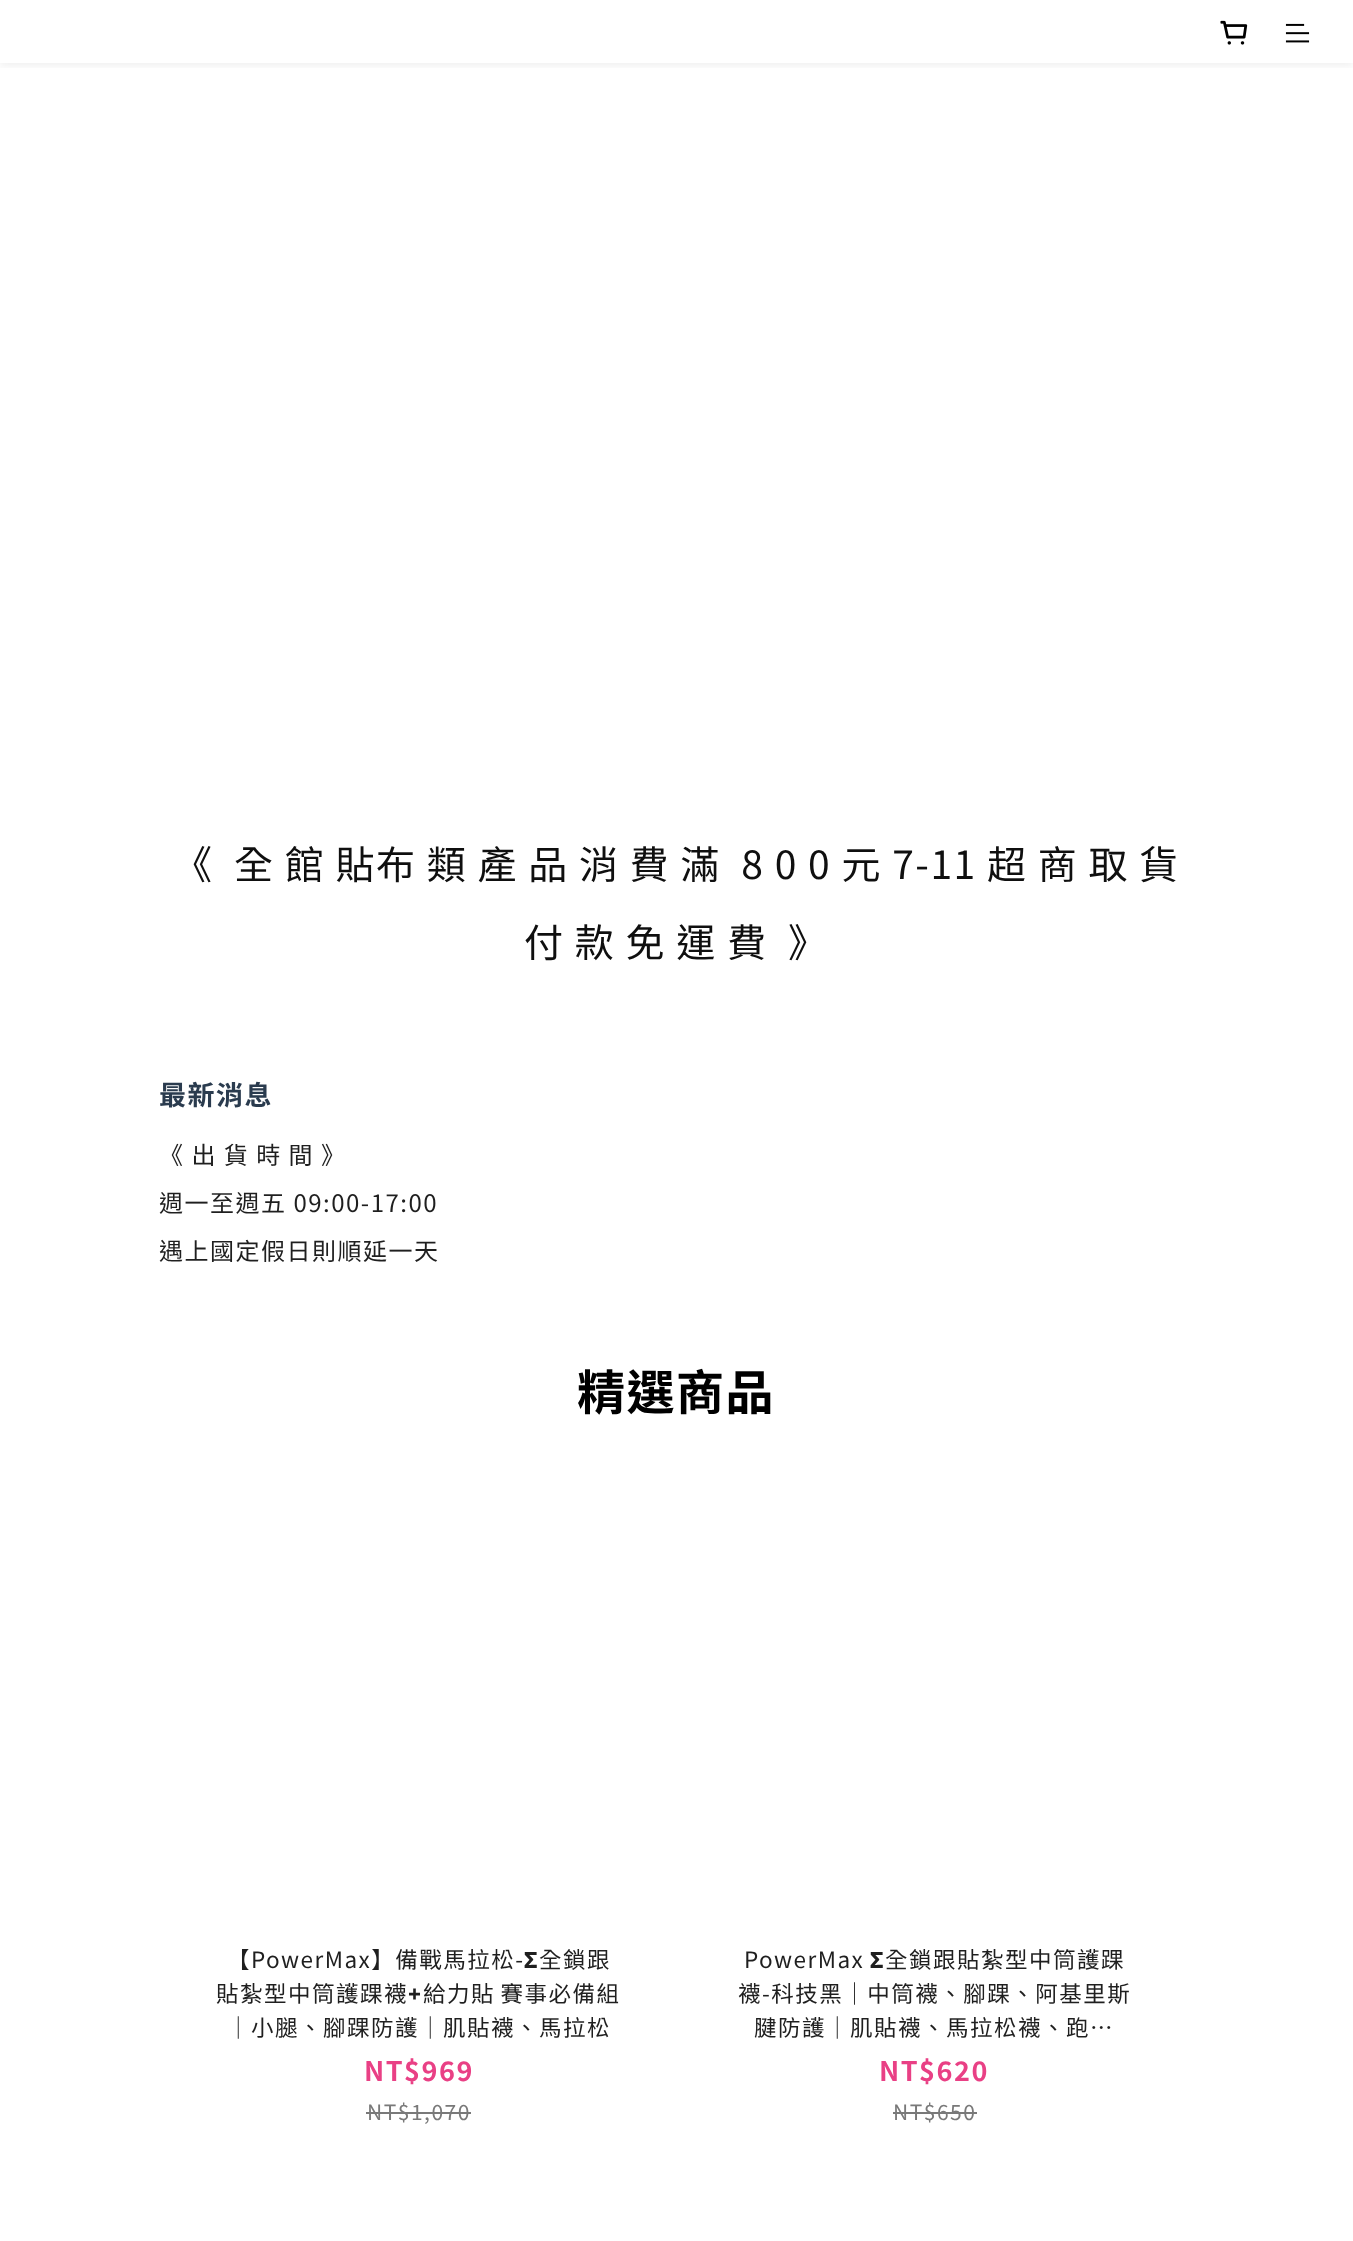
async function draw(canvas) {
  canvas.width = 1353
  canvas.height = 2241
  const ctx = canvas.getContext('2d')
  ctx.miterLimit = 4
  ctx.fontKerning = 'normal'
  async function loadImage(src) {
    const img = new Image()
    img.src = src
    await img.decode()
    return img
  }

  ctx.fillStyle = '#fff'
  ctx.fillRect(0, 0, 1353, 2241)
  ctx.save()
  ctx.beginPath()
  ctx.rect(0, 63, 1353, 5)
  ctx.clip()
  ctx.fillStyle = '#0000000f'
  ctx.filter = 'blur(4.5px)'
  ctx.beginPath()
  ctx.rect(0, 3, 1353, 63)
  ctx.fill()
  ctx.filter = 'none'
  ctx.restore()
  ctx.drawImage(await loadImage('image0.png'), 1220, 20, 28, 25)
  ctx.drawImage(await loadImage('image1.png'), 1285, 23, 25, 20)
  ctx.letterSpacing = '1.5px'
  ctx.font = '39px Noto Sans TC'
  ctx.fillStyle = '#0f0f0f'
  ctx.fillText('《  全 館 貼布 類 產 品 消 費 滿  8 0 0 元 7-11 超 商 取 貨', 173, 879)
  ctx.fillText('付 款 免 運 費  》', 524, 957)
  ctx.font = 'bold 27px Noto Sans TC'
  ctx.fillStyle = '#2a3b4e'
  ctx.fillText('最新消息', 159, 1105)
  ctx.font = '24px Noto Sans TC'
  ctx.fillStyle = '#1f1f1f'
  ctx.fillText('《 出 貨 時 間 》', 159, 1164)
  ctx.fillText('週一至週五 09:00-17:00', 159, 1212)
  ctx.fillText('遇上國定假日則順延一天', 159, 1260)
  ctx.font = 'bold 48px Noto Sans TC'
  ctx.fillStyle = '#000'
  ctx.fillText('精選商品', 577, 1410)
  ctx.font = '22.5px Noto Sans TC'
  ctx.fillStyle = '#1f1f1f'
  ctx.fillText('【PowerMax】備戰馬拉松-', 227, 1968)
  ctx.font = '800 22.5px Noto Sans'
  ctx.fillText('Σ', 524, 1968)
  ctx.font = '22.5px Noto Sans TC'
  ctx.fillText('全鎖跟', 539, 1968)
  ctx.fillText('貼紮型中筒護踝襪', 216, 2002)
  ctx.font = '800 22.5px Noto Sans'
  ctx.fillText('+', 408, 2002)
  ctx.wordSpacing = '-1px'
  ctx.font = '22.5px Noto Sans TC'
  ctx.fillText('給力貼 賽事必備組', 423, 2002)
  ctx.wordSpacing = '0px'
  ctx.fillText('｜小腿、腳踝防護｜肌貼襪、馬拉松', 227, 2036)
  ctx.font = 'bold 27px Noto Sans TC'
  ctx.fillStyle = '#e94085'
  ctx.fillText('NT$969', 364, 2081)
  ctx.font = '21px Noto Sans TC'
  ctx.fillStyle = '#797979'
  ctx.fillText('NT$1,070', 367, 2120)
  ctx.fillRect(366, 2112, 105, 2)
  ctx.font = '22.5px Noto Sans TC'
  ctx.fillStyle = '#1f1f1f'
  ctx.fillText('PowerMax', 744, 1968)
  ctx.font = '800 22.5px Noto Sans'
  ctx.fillText('Σ', 870, 1968)
  ctx.font = '22.5px Noto Sans TC'
  ctx.fillText('全鎖跟貼紮型中筒護踝', 885, 1968)
  ctx.fillText('襪-科技黑｜中筒襪、腳踝、阿基里斯', 738, 2002)
  ctx.fillText('腱防護｜肌貼襪、馬拉松襪、跑…', 754, 2036)
  ctx.font = 'bold 27px Noto Sans TC'
  ctx.fillStyle = '#e94085'
  ctx.fillText('NT$620', 879, 2081)
  ctx.font = '21px Noto Sans TC'
  ctx.fillStyle = '#797979'
  ctx.fillText('NT$650', 893, 2120)
  ctx.fillRect(893, 2112, 84, 2)
}

draw(document.querySelector('canvas'))
